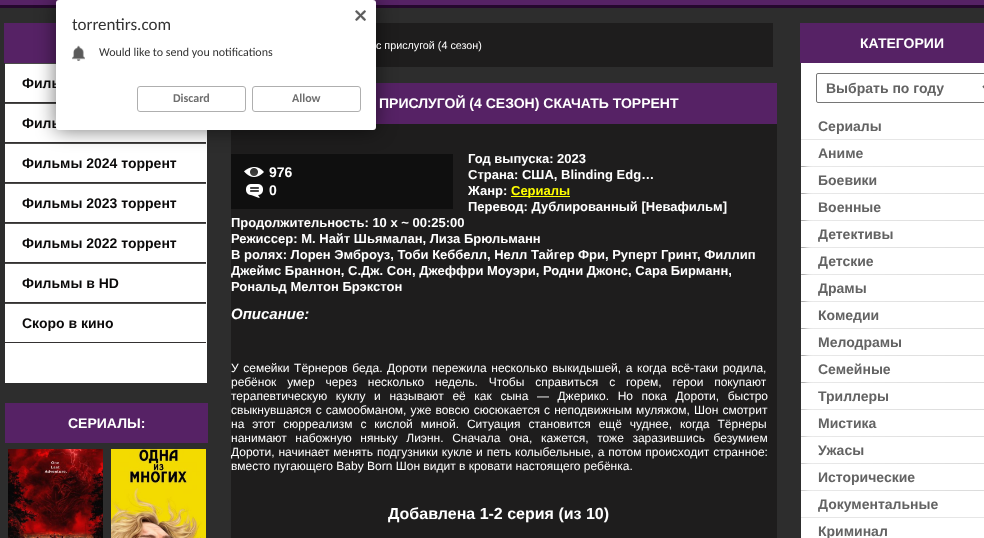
async function draw(canvas) {
  canvas.width = 984
  canvas.height = 538
  const ctx = canvas.getContext('2d')
  ctx.miterLimit = 4
  ctx.fontKerning = 'normal'
  async function loadImage(src) {
    const img = new Image()
    img.src = src
    await img.decode()
    return img
  }

  ctx.fillStyle = '#2d2d2d'
  ctx.fillRect(0, 0, 984, 538)
  ctx.fillStyle = '#562265'
  ctx.fillRect(0, 0, 984, 5)
  ctx.fillStyle = '#25082d'
  ctx.fillRect(0, 5, 984, 3)
  ctx.fillStyle = '#562265'
  ctx.fillRect(4, 23, 52, 40)
  ctx.fillStyle = '#fff'
  ctx.fillRect(5, 64, 202, 319)
  ctx.fillStyle = '#4c4c4a'
  ctx.fillRect(5, 63, 51, 1)
  ctx.fillStyle = '#343132'
  ctx.fillRect(5, 102, 51, 1)
  ctx.fillStyle = '#4c4c4a'
  ctx.fillRect(5, 103, 51, 1)
  ctx.fillStyle = '#343132'
  ctx.fillRect(5, 142, 201, 1)
  ctx.fillStyle = '#4c4c4a'
  ctx.fillRect(5, 143, 201, 1)
  ctx.fillStyle = '#1e1d1d'
  ctx.fillRect(376, 23, 397, 44)
  ctx.fillRect(231, 124, 546, 414)
  ctx.fillStyle = '#562265'
  ctx.fillRect(376, 83, 401, 41)
  ctx.fillStyle = '#0f0f0f'
  ctx.fillRect(231, 154, 222, 55)
  ctx.fillStyle = '#0000008a'
  ctx.filter = 'blur(10px)'
  ctx.beginPath()
  ctx.roundRect(56, 0, 320, 130, 3)
  ctx.fill()
  ctx.filter = 'none'
  ctx.font = 'bold 14px Liberation Sans'
  ctx.fillStyle = '#0b0a0a'
  ctx.fillText('Филь', 22, 88)
  ctx.fillText('Филь', 22, 128)
  ctx.fillStyle = '#fff'
  ctx.beginPath()
  ctx.roundRect(56, 0, 320, 130, 3)
  ctx.fill()
  ctx.drawImage(await loadImage('image0.png'), 355, 10, 11, 11)
  ctx.font = '17px Carlito'
  ctx.fillStyle = '#333'
  ctx.fillText('torrentirs.com', 72, 30)
  ctx.drawImage(await loadImage('image1.png'), 72, 45, 13, 16)
  ctx.font = '12px Carlito'
  ctx.fillText('Would like to send you notifications', 99, 56)
  ctx.beginPath()
  ctx.roundRect(137.5, 86.5, 108, 25, 2.5)
  ctx.strokeStyle = '#afafaf'
  ctx.stroke()
  ctx.font = 'bold 12px Carlito'
  ctx.fillStyle = '#6f6f6f'
  ctx.fillText('Discard', 173, 102)
  ctx.beginPath()
  ctx.roundRect(252.5, 86.5, 108, 25, 2.5)
  ctx.stroke()
  ctx.fillText('Allow', 292, 102)
  ctx.fillStyle = '#343132'
  ctx.fillRect(5, 182, 201, 1)
  ctx.font = 'bold 14px Liberation Sans'
  ctx.fillStyle = '#0b0a0a'
  ctx.fillText('Фильмы 2024 торрент', 22, 168)
  ctx.fillStyle = '#4c4c4a'
  ctx.fillRect(5, 183, 201, 1)
  ctx.fillStyle = '#343132'
  ctx.fillRect(5, 222, 201, 1)
  ctx.fillStyle = '#0b0a0a'
  ctx.fillText('Фильмы 2023 торрент', 22, 208)
  ctx.fillStyle = '#4c4c4a'
  ctx.fillRect(5, 223, 201, 1)
  ctx.fillStyle = '#343132'
  ctx.fillRect(5, 262, 201, 1)
  ctx.fillStyle = '#0b0a0a'
  ctx.fillText('Фильмы 2022 торрент', 22, 248)
  ctx.fillStyle = '#4c4c4a'
  ctx.fillRect(5, 263, 201, 1)
  ctx.fillStyle = '#343132'
  ctx.fillRect(5, 302, 201, 1)
  ctx.fillStyle = '#0b0a0a'
  ctx.fillText('Фильмы в HD', 22, 288)
  ctx.fillStyle = '#4c4c4a'
  ctx.fillRect(5, 303, 201, 1)
  ctx.fillStyle = '#343132'
  ctx.fillRect(5, 342, 201, 1)
  ctx.fillStyle = '#0b0a0a'
  ctx.fillText('Скоро в кино', 22, 328)
  ctx.fillStyle = '#562265'
  ctx.fillRect(5, 403, 203, 40)
  ctx.fillStyle = '#fff'
  ctx.fillText('СЕРИАЛЫ:', 68, 428)
  ctx.drawImage(await loadImage('image2.png'), 8, 449, 95, 89)
  ctx.drawImage(await loadImage('image3.png'), 111, 449, 95, 89)
  ctx.font = '10.75px Liberation Sans'
  ctx.fillText('с прислугой (4 сезон)', 376, 49)
  ctx.font = 'bold 14px Liberation Sans'
  ctx.fillText('ПРИСЛУГОЙ (4 СЕЗОН) СКАЧАТЬ ТОРРЕНТ', 379, 108)
  ctx.font = 'bold 13px Liberation Sans'
  ctx.fillText('Год выпуска: 2023', 468, 163)
  ctx.fillText('Страна: США, Blinding Edg…', 468, 179)
  ctx.fillText('Жанр:', 468, 195)
  ctx.fillStyle = '#ff0'
  ctx.fillRect(511, 196, 59, 1)
  ctx.fillText('Сериалы', 511, 195)
  ctx.fillStyle = '#fff'
  ctx.fillText('Перевод: Дублированный [Невафильм]', 468, 211)
  ctx.fillText('Продолжительность: 10 x ~ 00:25:00', 231, 227)
  ctx.fillText('Режиссер: М. Найт Шьямалан, Лиза Брюльманн', 231, 243)
  ctx.fillText('В ролях: Лорен Эмброуз, Тоби Кеббелл, Нелл Тайгер Фри, Руперт Гринт, Филлип', 231, 259)
  ctx.fillText('Джеймс Браннон, С.Дж. Сон, Джеффри Моуэри, Родни Джонс, Сара Бирманн,', 231, 275)
  ctx.fillText('Рональд Мелтон Брэкстон', 231, 291)
  ctx.font = 'italic bold 15px Liberation Sans'
  ctx.fillText('Описание:', 231, 319)
  ctx.wordSpacing = '1.25px'
  ctx.font = '12px Liberation Sans'
  ctx.fillText('У семейки Тёрнеров беда. Дороти пережила несколько выкидышей, а когда всё-таки родила,', 231, 372)
  ctx.wordSpacing = '7.5px'
  ctx.fillText('ребёнок умер через несколько недель. Чтобы справиться с горем, герои покупают', 231, 386)
  ctx.wordSpacing = '5.25px'
  ctx.fillText('терапевтическую куклу и называют её как сына — Джерико. Но пока Дороти, быстро', 231, 400)
  ctx.wordSpacing = '0.75px'
  ctx.fillText('свыкнувшаяся с самообманом, уже вовсю сюсюкается с неподвижным муляжом, Шон смотрит', 231, 414)
  ctx.wordSpacing = '4.6px'
  ctx.fillText('на этот сюрреализм с кислой миной. Ситуация становится ещё чуднее, когда Тёрнеры', 231, 428)
  ctx.wordSpacing = '5.25px'
  ctx.fillText('нанимают набожную няньку Лиэнн. Сначала она, кажется, тоже заразившись безумием', 231, 442)
  ctx.wordSpacing = '0.5px'
  ctx.fillText('Дороти, начинает менять подгузники кукле и петь колыбельные, а потом происходит странное:', 231, 456)
  ctx.wordSpacing = '0px'
  ctx.fillText('вместо пугающего Baby Born Шон видит в кровати настоящего ребёнка.', 231, 470)
  ctx.font = 'bold 16px Liberation Sans'
  ctx.fillText('Добавлена 1-2 серия (из 10)', 388, 519)
  ctx.drawImage(await loadImage('image4.png'), 244, 167, 20, 10)
  ctx.font = 'bold 14px Liberation Sans'
  ctx.fillText('976', 269, 177)
  ctx.drawImage(await loadImage('image5.png'), 246, 184, 17, 14)
  ctx.fillText('0', 269, 195)
  ctx.fillStyle = '#562265'
  ctx.fillRect(800, 23, 184, 40)
  ctx.fillStyle = '#fff'
  ctx.fillText('КАТЕГОРИИ', 860, 48)
  ctx.fillRect(801, 63, 183, 475)
  ctx.beginPath()
  ctx.roundRect(816.5, 73.5, 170, 29, 1.5)
  ctx.strokeStyle = '#767676'
  ctx.stroke()
  ctx.beginPath()
  ctx.moveTo(983, 86)
  ctx.lineTo(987, 90)
  ctx.lineTo(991, 86)
  ctx.strokeStyle = '#636363'
  ctx.lineWidth = 2
  ctx.stroke()
  ctx.fillStyle = '#636363'
  ctx.fillText('Выбрать по году', 826, 93)
  ctx.fillStyle = '#e6e6e6'
  ctx.fillRect(801, 139, 183, 1)
  ctx.fillStyle = '#636363'
  ctx.fillText('Сериалы', 818, 131)
  ctx.drawImage(await loadImage('image6.png'), 801, 166, 183, 1)
  ctx.fillText('Аниме', 818, 158)
  ctx.drawImage(await loadImage('image6.png'), 801, 193, 183, 1)
  ctx.fillText('Боевики', 818, 185)
  ctx.drawImage(await loadImage('image6.png'), 801, 220, 183, 1)
  ctx.fillText('Военные', 818, 212)
  ctx.drawImage(await loadImage('image6.png'), 801, 247, 183, 1)
  ctx.fillText('Детективы', 818, 239)
  ctx.drawImage(await loadImage('image6.png'), 801, 274, 183, 1)
  ctx.fillText('Детские', 818, 266)
  ctx.drawImage(await loadImage('image6.png'), 801, 301, 183, 1)
  ctx.fillText('Драмы', 818, 293)
  ctx.drawImage(await loadImage('image6.png'), 801, 328, 183, 1)
  ctx.fillText('Комедии', 818, 320)
  ctx.drawImage(await loadImage('image6.png'), 801, 355, 183, 1)
  ctx.fillText('Мелодрамы', 818, 347)
  ctx.drawImage(await loadImage('image6.png'), 801, 382, 183, 1)
  ctx.fillText('Семейные', 818, 374)
  ctx.drawImage(await loadImage('image7.png'), 801, 409, 183, 1)
  ctx.fillText('Триллеры', 818, 401)
  ctx.drawImage(await loadImage('image7.png'), 801, 436, 183, 1)
  ctx.fillText('Мистика', 818, 428)
  ctx.drawImage(await loadImage('image7.png'), 801, 463, 183, 1)
  ctx.fillText('Ужасы', 818, 455)
  ctx.drawImage(await loadImage('image7.png'), 801, 490, 183, 1)
  ctx.fillText('Исторические', 818, 482)
  ctx.fillStyle = '#e6e6e6'
  ctx.fillRect(801, 517, 183, 1)
  ctx.fillStyle = '#636363'
  ctx.fillText('Документальные', 818, 509)
  ctx.fillText('Криминал', 818, 536)
}

draw(document.querySelector('canvas'))
